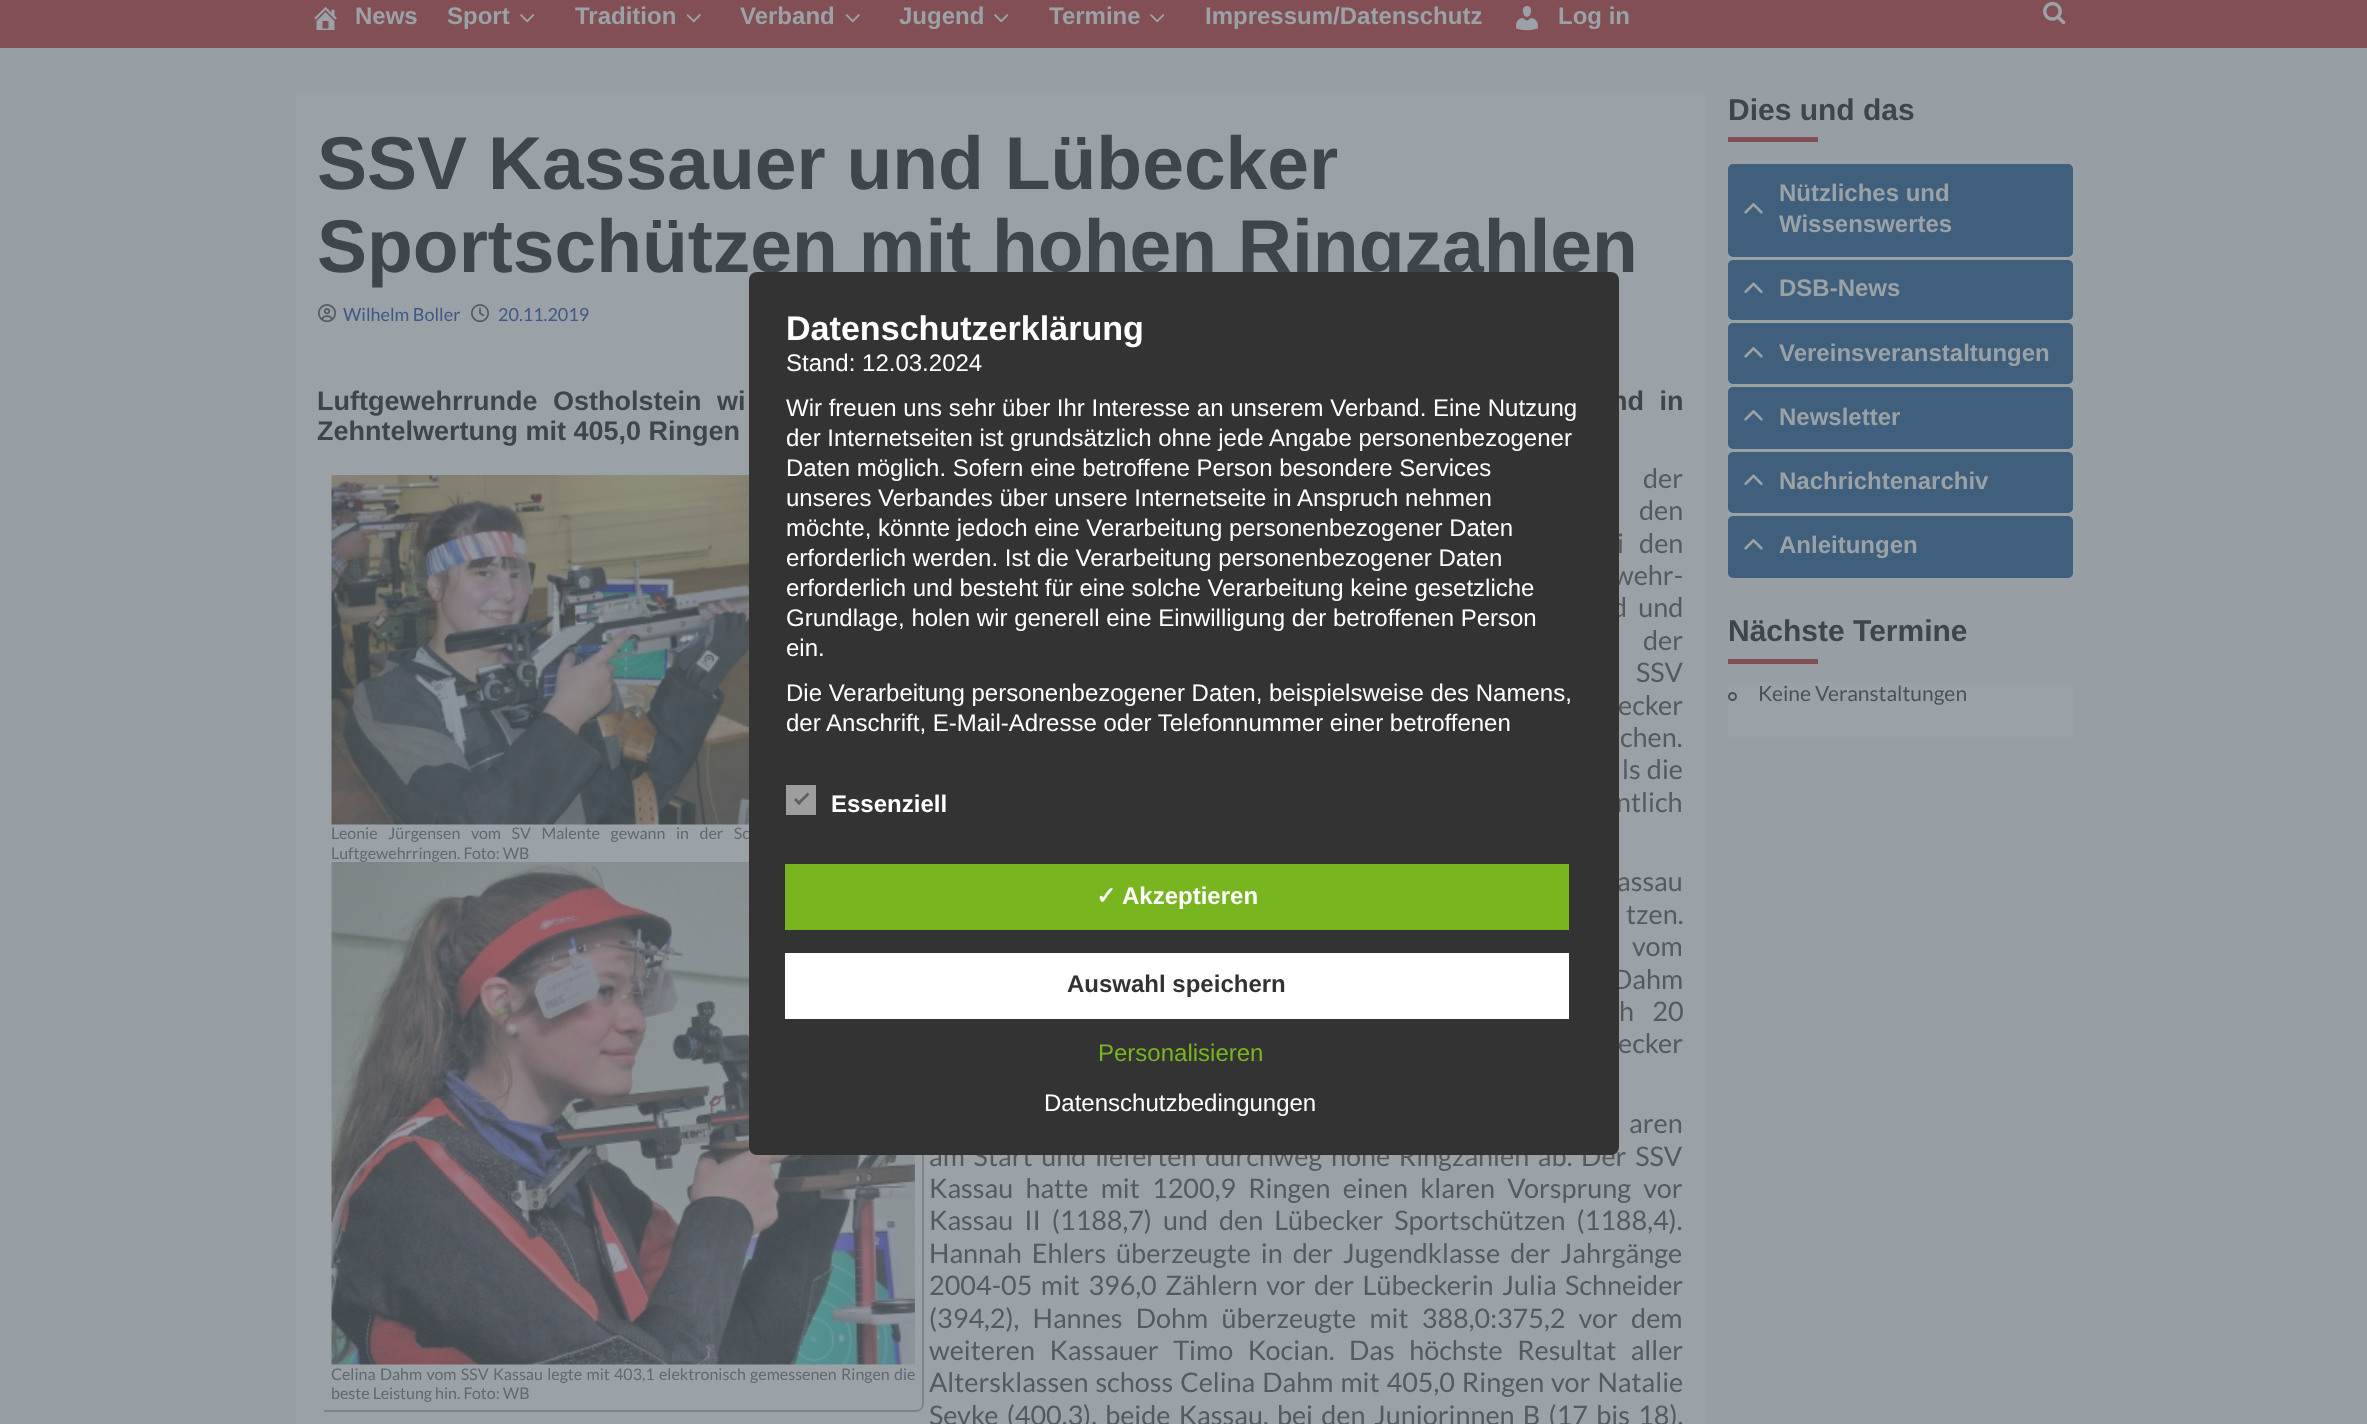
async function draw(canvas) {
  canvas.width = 2367
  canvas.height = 1424
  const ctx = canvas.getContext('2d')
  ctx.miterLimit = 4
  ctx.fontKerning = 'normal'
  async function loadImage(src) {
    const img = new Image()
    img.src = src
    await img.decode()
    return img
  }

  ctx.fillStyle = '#989fa4'
  ctx.fillRect(0, 0, 2367, 1424)
  ctx.fillStyle = '#824f54'
  ctx.fillRect(0, 0, 2367, 48)
  ctx.drawImage(await loadImage('image0.png'), 314, 6, 23, 24)
  ctx.font = 'bold 24px Liberation Sans'
  ctx.fillStyle = '#9ba2a7'
  ctx.fillText('News', 355, 24)
  ctx.fillText('Sport', 447, 24)
  ctx.drawImage(await loadImage('image1.png'), 520, 14, 15, 9)
  ctx.fillText('Tradition', 575, 24)
  ctx.drawImage(await loadImage('image2.png'), 686, 14, 15, 9)
  ctx.fillText('Verband', 740, 24)
  ctx.drawImage(await loadImage('image2.png'), 845, 14, 15, 9)
  ctx.fillText('Jugend', 899, 24)
  ctx.drawImage(await loadImage('image1.png'), 994, 14, 15, 9)
  ctx.fillText('Termine', 1049, 24)
  ctx.drawImage(await loadImage('image1.png'), 1150, 14, 15, 9)
  ctx.fillText('Impressum/Datenschutz', 1205, 24)
  ctx.drawImage(await loadImage('image3.png'), 1516, 6, 22, 25)
  ctx.fillText('Log in', 1558, 24)
  ctx.drawImage(await loadImage('image4.png'), 2043, 1, 23, 24)
  ctx.fillRect(296, 93, 1410, 1331)
  ctx.font = 'bold 75px Liberation Sans'
  ctx.fillStyle = '#3f464b'
  ctx.fillText('SSV Kassauer und Lübecker', 317, 189)
  ctx.fillText('Sportschützen mit hohen Ringzahlen', 317, 272)
  ctx.drawImage(await loadImage('image5.png'), 318, 304, 18, 19)
  ctx.font = '18px Lato'
  ctx.fillStyle = '#3f5982'
  ctx.fillText('Wilhelm Boller', 343, 321)
  ctx.drawImage(await loadImage('image6.png'), 471, 304, 18, 19)
  ctx.fillText('20.11.2019', 498, 321)
  ctx.wordSpacing = '8px'
  ctx.font = 'bold 27px Liberation Sans'
  ctx.fillStyle = '#3f464b'
  ctx.fillText('Luftgewehrrunde Ostholstein wi', 317, 410)
  ctx.fillText('nd in', 1611, 410)
  ctx.wordSpacing = '0px'
  ctx.fillText('Zehntelwertung mit 405,0 Ringen', 317, 440)
  ctx.wordSpacing = '18px'
  ctx.font = '27px Lato'
  ctx.fillStyle = '#545b60'
  ctx.fillText('der', 1643, 488)
  ctx.wordSpacing = '48px'
  ctx.fillText('den', 1639, 520)
  ctx.wordSpacing = '10px'
  ctx.fillText('i den', 1617, 553)
  ctx.wordSpacing = '8px'
  ctx.fillText('wehr-', 1613, 585)
  ctx.wordSpacing = '6px'
  ctx.fillText('d und', 1612, 617)
  ctx.wordSpacing = '12px'
  ctx.fillText('der', 1643, 650)
  ctx.wordSpacing = '14px'
  ctx.fillText('SSV', 1636, 682)
  ctx.wordSpacing = '4px'
  ctx.fillText('ecker', 1618, 715)
  ctx.fillText('chen.', 1620, 747)
  ctx.wordSpacing = '1px'
  ctx.fillText('ls die', 1622, 779)
  ctx.wordSpacing = '3px'
  ctx.fillText('ntlich', 1616, 812)
  ctx.fillStyle = '#7c8488'
  ctx.beginPath()
  ctx.moveTo(324, 468)
  ctx.lineTo(924, 468)
  ctx.lineTo(924, 1404)
  ctx.bezierCurveTo(924, 1408, 920, 1412, 916, 1412)
  ctx.lineTo(324, 1412)
  ctx.closePath()
  ctx.moveTo(324, 468)
  ctx.lineTo(922, 468)
  ctx.lineTo(922, 1404)
  ctx.bezierCurveTo(922, 1407, 920, 1410, 916, 1410)
  ctx.lineTo(324, 1410)
  ctx.closePath()
  ctx.fill('evenodd')
  ctx.drawImage(await loadImage('image7.png'), 331, 475, 418, 350)
  ctx.wordSpacing = '7.5px'
  ctx.font = '16px Lato'
  ctx.fillStyle = '#61696d'
  ctx.fillText('Leonie Jürgensen vom SV Malente gewann in der Sc', 331, 839)
  ctx.wordSpacing = '0px'
  ctx.fillText('Luftgewehrringen. Foto: WB', 331, 859)
  ctx.drawImage(await loadImage('image8.png'), 331, 862, 584, 503)
  ctx.wordSpacing = '1.25px'
  ctx.fillText('Celina Dahm vom SSV Kassau legte mit 403,1 elektronisch gemessenen Ringen die', 331, 1380)
  ctx.wordSpacing = '0px'
  ctx.fillText('beste Leistung hin. Foto: WB', 331, 1399)
  ctx.wordSpacing = '4px'
  ctx.font = '27px Lato'
  ctx.fillStyle = '#545b60'
  ctx.fillText('assau', 1617, 891)
  ctx.wordSpacing = '3px'
  ctx.fillText('tzen.', 1626, 924)
  ctx.wordSpacing = '4px'
  ctx.fillText('vom', 1632, 956)
  ctx.wordSpacing = '5px'
  ctx.fillText('Dahm', 1612, 989)
  ctx.wordSpacing = '13px'
  ctx.fillText('h 20', 1619, 1021)
  ctx.wordSpacing = '4px'
  ctx.fillText('ecker', 1618, 1053)
  ctx.wordSpacing = '2px'
  ctx.fillText('aren', 1629, 1133)
  ctx.wordSpacing = '3.5px'
  ctx.fillText('am Start und lieferten durchweg hohe Ringzahlen ab. Der SSV', 929, 1166)
  ctx.wordSpacing = '7px'
  ctx.fillText('Kassau hatte mit 1200,9 Ringen einen klaren Vorsprung vor', 929, 1198)
  ctx.wordSpacing = '5.75px'
  ctx.fillText('Kassau II (1188,7) und den Lübecker Sportschützen (1188,4).', 929, 1230)
  ctx.wordSpacing = '4.75px'
  ctx.fillText('Hannah Ehlers überzeugte in der Jugendklasse der Jahrgänge', 929, 1263)
  ctx.wordSpacing = '3.25px'
  ctx.fillText('2004-05 mit 396,0 Zählern vor der Lübeckerin Julia Schneider', 929, 1295)
  ctx.wordSpacing = '8px'
  ctx.fillText('(394,2), Hannes Dohm überzeugte mit 388,0:375,2 vor dem', 929, 1328)
  ctx.wordSpacing = '9.25px'
  ctx.fillText('weiteren Kassauer Timo Kocian. Das höchste Resultat aller', 929, 1360)
  ctx.wordSpacing = '1.75px'
  ctx.fillText('Altersklassen schoss Celina Dahm mit 405,0 Ringen vor Natalie', 929, 1392)
  ctx.wordSpacing = '3px'
  ctx.fillText('Sevke (400,3), beide Kassau, bei den Juniorinnen B (17 bis 18).', 929, 1425)
  ctx.wordSpacing = '0px'
  ctx.font = 'bold 30px Liberation Sans'
  ctx.fillStyle = '#3f464b'
  ctx.fillText('Dies und das', 1728, 120)
  ctx.fillStyle = '#824f54'
  ctx.fillRect(1728, 137, 90, 5)
  ctx.fillStyle = '#9ba2a7'
  ctx.fillRect(1728, 164, 345, 414)
  ctx.fillStyle = '#3f5f7d'
  ctx.beginPath()
  ctx.roundRect(1728, 164, 345, 93, 5)
  ctx.fill()
  ctx.drawImage(await loadImage('image9.png'), 1744, 203, 19, 11)
  ctx.font = 'bold 24px Liberation Sans'
  ctx.fillStyle = '#9ba2a7'
  ctx.fillText('Nützliches und', 1779, 201)
  ctx.fillText('Wissenswertes', 1779, 232)
  ctx.fillStyle = '#3f5f7d'
  ctx.beginPath()
  ctx.roundRect(1728, 260, 345, 60, 5)
  ctx.fill()
  ctx.drawImage(await loadImage('image10.png'), 1744, 282, 19, 11)
  ctx.fillStyle = '#9ba2a7'
  ctx.fillText('DSB-News', 1779, 296)
  ctx.fillStyle = '#3f5f7d'
  ctx.beginPath()
  ctx.roundRect(1728, 323, 345, 61, 5)
  ctx.fill()
  ctx.drawImage(await loadImage('image9.png'), 1744, 347, 19, 11)
  ctx.fillStyle = '#9ba2a7'
  ctx.fillText('Vereinsveranstaltungen', 1779, 361)
  ctx.fillStyle = '#3f5f7d'
  ctx.beginPath()
  ctx.roundRect(1728, 387, 345, 62, 5)
  ctx.fill()
  ctx.drawImage(await loadImage('image9.png'), 1744, 410, 19, 11)
  ctx.fillStyle = '#9ba2a7'
  ctx.fillText('Newsletter', 1779, 425)
  ctx.fillStyle = '#3f5f7d'
  ctx.beginPath()
  ctx.roundRect(1728, 452, 345, 61, 5)
  ctx.fill()
  ctx.drawImage(await loadImage('image10.png'), 1744, 474, 19, 11)
  ctx.fillStyle = '#9ba2a7'
  ctx.fillText('Nachrichtenarchiv', 1779, 489)
  ctx.fillStyle = '#3f5f7d'
  ctx.beginPath()
  ctx.roundRect(1728, 516, 345, 62, 5)
  ctx.fill()
  ctx.drawImage(await loadImage('image9.png'), 1744, 539, 19, 11)
  ctx.fillStyle = '#9ba2a7'
  ctx.fillText('Anleitungen', 1779, 553)
  ctx.font = 'bold 30px Liberation Sans'
  ctx.fillStyle = '#3f464b'
  ctx.fillText('Nächste Termine', 1728, 641)
  ctx.fillStyle = '#824f54'
  ctx.fillRect(1728, 659, 90, 5)
  ctx.fillStyle = '#9ba2a7'
  ctx.fillRect(1728, 683, 345, 54)
  ctx.beginPath()
  ctx.arc(1732.5, 696.5, 3.5, 0, 2 * Math.PI)
  ctx.strokeStyle = '#4b5257'
  ctx.lineWidth = 2
  ctx.stroke()
  ctx.font = '21px Lato'
  ctx.fillStyle = '#4b5257'
  ctx.fillText('Keine Veranstaltungen', 1758, 701)
  ctx.fillStyle = '#333'
  ctx.beginPath()
  ctx.roundRect(749, 272, 870, 883, 8)
  ctx.fill()
  ctx.font = 'bold 34.1px Liberation Sans'
  ctx.fillStyle = '#fff'
  ctx.fillText('Datenschutzerklärung', 786, 340)
  ctx.font = '24px Liberation Sans'
  ctx.fillText('Stand: 12.03.2024', 786, 371)
  ctx.fillText('Wir freuen uns sehr über Ihr Interesse an unserem Verband. Eine Nutzung', 786, 416)
  ctx.fillText('der Internetseiten ist grundsätzlich ohne jede Angabe personenbezogener', 786, 446)
  ctx.fillText('Daten möglich. Sofern eine betroffene Person besondere Services', 786, 476)
  ctx.fillText('unseres Verbandes über unsere Internetseite in Anspruch nehmen', 786, 506)
  ctx.fillText('möchte, könnte jedoch eine Verarbeitung personenbezogener Daten', 786, 536)
  ctx.fillText('erforderlich werden. Ist die Verarbeitung personenbezogener Daten', 786, 566)
  ctx.fillText('erforderlich und besteht für eine solche Verarbeitung keine gesetzliche', 786, 596)
  ctx.fillText('Grundlage, holen wir generell eine Einwilligung der betroffenen Person', 786, 626)
  ctx.fillText('ein.', 786, 656)
  ctx.fillText('Die Verarbeitung personenbezogener Daten, beispielsweise des Namens,', 786, 701)
  ctx.fillText('der Anschrift, E-Mail-Adresse oder Telefonnummer einer betroffenen', 786, 731)
  ctx.fillStyle = '#9e9e9e'
  ctx.fillRect(786, 785, 30, 30)
  ctx.fillStyle = '#5e5e5e'
  ctx.beginPath()
  ctx.moveTo(807.5, 792.5)
  ctx.lineTo(809.5, 794.5)
  ctx.lineTo(799, 805)
  ctx.lineTo(797, 803)
  ctx.closePath()
  ctx.fill()
  ctx.beginPath()
  ctx.moveTo(796, 798)
  ctx.lineTo(801, 803)
  ctx.lineTo(799, 805)
  ctx.lineTo(794, 800)
  ctx.closePath()
  ctx.fill()
  ctx.font = 'bold 24px Liberation Sans'
  ctx.fillStyle = '#fff'
  ctx.fillText('Essenziell', 831, 812)
  ctx.fillStyle = '#79b51f'
  ctx.fillRect(785, 864, 784, 66)
  ctx.font = 'bold 24px DejaVu Sans'
  ctx.fillStyle = '#fff'
  ctx.fillText('✓', 1096, 904)
  ctx.font = 'bold 24px Liberation Sans'
  ctx.fillText('Akzeptieren', 1122, 904)
  ctx.fillRect(785, 953, 784, 66)
  ctx.fillStyle = '#333'
  ctx.fillText('Auswahl speichern', 1067, 992)
  ctx.font = '24px Liberation Sans'
  ctx.fillStyle = '#79b51f'
  ctx.fillText('Personalisieren', 1098, 1061)
  ctx.fillStyle = '#fff'
  ctx.fillText('Datenschutzbedingungen', 1044, 1111)
}

draw(document.querySelector('canvas'))
